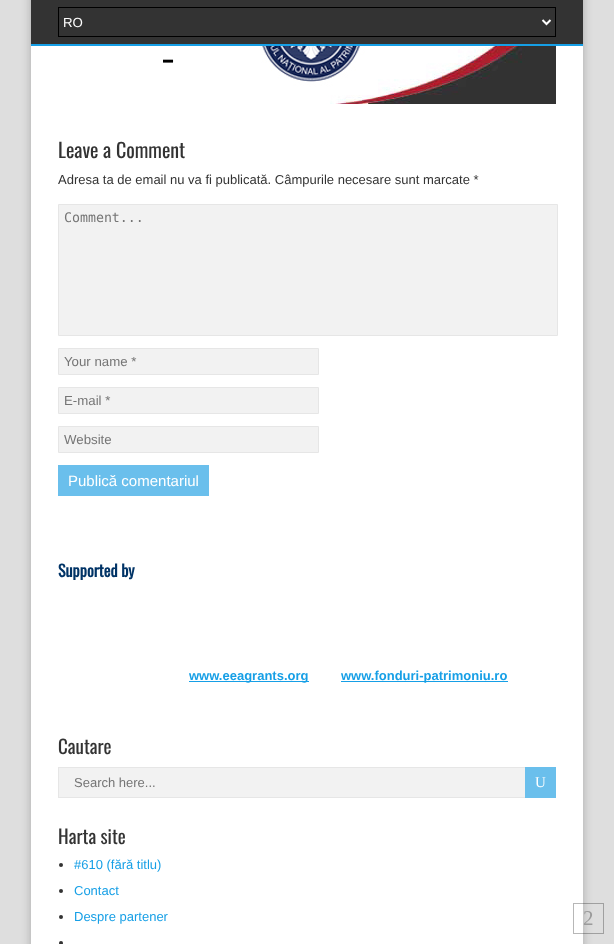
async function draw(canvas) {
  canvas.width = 614
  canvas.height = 944
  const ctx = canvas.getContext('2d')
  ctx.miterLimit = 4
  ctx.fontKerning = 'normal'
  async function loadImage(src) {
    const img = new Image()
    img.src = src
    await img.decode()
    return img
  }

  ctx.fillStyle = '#dedede'
  ctx.fillRect(0, 0, 614, 944)
  ctx.fillStyle = '#aaa'
  ctx.filter = 'blur(5px)'
  ctx.beginPath()
  ctx.rect(31, -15, 552, 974)
  ctx.fill()
  ctx.filter = 'none'
  ctx.fillStyle = '#fff'
  ctx.fillRect(31, 46, 552, 898)
  ctx.fillStyle = '#333'
  ctx.fillRect(31, 0, 552, 44)
  ctx.fillStyle = '#169fe6'
  ctx.fillRect(31, 44, 552, 2)
  ctx.strokeStyle = '#000'
  ctx.strokeRect(58.5, 7.5, 497, 29)
  ctx.beginPath()
  ctx.moveTo(542.5, 20)
  ctx.lineTo(546.5, 24)
  ctx.lineTo(550.5, 20)
  ctx.strokeStyle = '#fff'
  ctx.lineWidth = 2
  ctx.stroke()
  ctx.font = '13.25px Liberation Sans'
  ctx.fillStyle = '#fff'
  ctx.fillText('RO', 63, 27)
  ctx.drawImage(await loadImage('image0.png'), 260, 46, 296, 58)
  ctx.font = 'bold 27px Oswald'
  ctx.fillStyle = '#000'
  ctx.fillText('_', 163, 59)
  ctx.font = '20px Oswald'
  ctx.fillStyle = '#333'
  ctx.fillText('Leave a Comment', 58, 158)
  ctx.font = '13px Liberation Sans'
  ctx.fillText('Adresa ta de email nu va fi publicată. Câmpurile necesare sunt marcate *', 58, 184)
  ctx.fillStyle = '#f2f2f2'
  ctx.beginPath()
  ctx.rect(58.5, 204.5, 499, 131)
  ctx.fill()
  ctx.strokeStyle = '#e6e6e6'
  ctx.lineWidth = 1
  ctx.stroke()
  ctx.font = '13.25px DejaVu Sans Mono'
  ctx.fillStyle = '#757575'
  ctx.fillText('Comment...', 64, 222)
  ctx.fillStyle = '#f2f2f2'
  ctx.beginPath()
  ctx.rect(58.5, 348.5, 260, 26)
  ctx.fill()
  ctx.stroke()
  ctx.font = '13.25px Liberation Sans'
  ctx.fillStyle = '#757575'
  ctx.fillText('Your name *', 64, 366)
  ctx.fillStyle = '#f2f2f2'
  ctx.beginPath()
  ctx.rect(58.5, 387.5, 260, 26)
  ctx.fill()
  ctx.stroke()
  ctx.fillStyle = '#757575'
  ctx.fillText('E-mail *', 64, 405)
  ctx.fillStyle = '#f2f2f2'
  ctx.beginPath()
  ctx.rect(58.5, 426.5, 260, 26)
  ctx.fill()
  ctx.stroke()
  ctx.fillStyle = '#757575'
  ctx.fillText('Website', 64, 444)
  ctx.fillStyle = '#6abfec'
  ctx.fillRect(58, 465, 151, 31)
  ctx.font = '15px Liberation Sans'
  ctx.fillStyle = '#fff'
  ctx.fillText('Publică comentariul', 68, 486)
  ctx.font = 'bold 16px Oswald'
  ctx.fillStyle = '#036'
  ctx.fillText('Supported by', 58, 577)
  ctx.fillStyle = '#169fe6'
  ctx.fillRect(189, 681, 120, 1)
  ctx.font = 'bold 13px Liberation Sans'
  ctx.fillText('www.eeagrants.org', 189, 680)
  ctx.fillRect(341, 681, 167, 1)
  ctx.fillText('www.fonduri-patrimoniu.ro', 341, 680)
  ctx.font = '19px Oswald'
  ctx.fillStyle = '#333'
  ctx.fillText('Cautare', 58, 754)
  ctx.fillStyle = '#f2f2f2'
  ctx.fillRect(59, 768, 466, 29)
  ctx.strokeRect(58.5, 767.5, 494, 30)
  ctx.font = '13px Liberation Sans'
  ctx.fillStyle = '#757575'
  ctx.fillText('Search here...', 74, 787)
  ctx.fillStyle = '#6abfec'
  ctx.fillRect(525, 767, 31, 31)
  ctx.font = '15px Liberation Serif'
  ctx.fillStyle = '#fff'
  ctx.fillText('U', 535, 787)
  ctx.font = '19px Oswald'
  ctx.fillStyle = '#333'
  ctx.fillText('Harta site', 58, 844)
  ctx.beginPath()
  ctx.arc(61, 865, 2, 0, 2 * Math.PI)
  ctx.fill()
  ctx.font = '13px Liberation Sans'
  ctx.fillStyle = '#169fe6'
  ctx.fillText('#610 (fără titlu)', 74, 869)
  ctx.fillStyle = '#333'
  ctx.beginPath()
  ctx.arc(61, 891, 2, 0, 2 * Math.PI)
  ctx.fill()
  ctx.fillStyle = '#169fe6'
  ctx.fillText('Contact', 74, 895)
  ctx.fillStyle = '#333'
  ctx.beginPath()
  ctx.arc(61, 917, 2, 0, 2 * Math.PI)
  ctx.fill()
  ctx.fillStyle = '#169fe6'
  ctx.fillText('Despre partener', 74, 921)
  ctx.fillStyle = '#333'
  ctx.beginPath()
  ctx.arc(61, 943, 2, 0, 2 * Math.PI)
  ctx.fill()
  ctx.strokeStyle = '#1111114d'
  ctx.strokeRect(573.5, 903.5, 30, 30)
  ctx.font = '21px Liberation Serif'
  ctx.fillStyle = '#9b9b9b'
  ctx.fillText('2', 583, 925)
}

draw(document.querySelector('canvas'))
